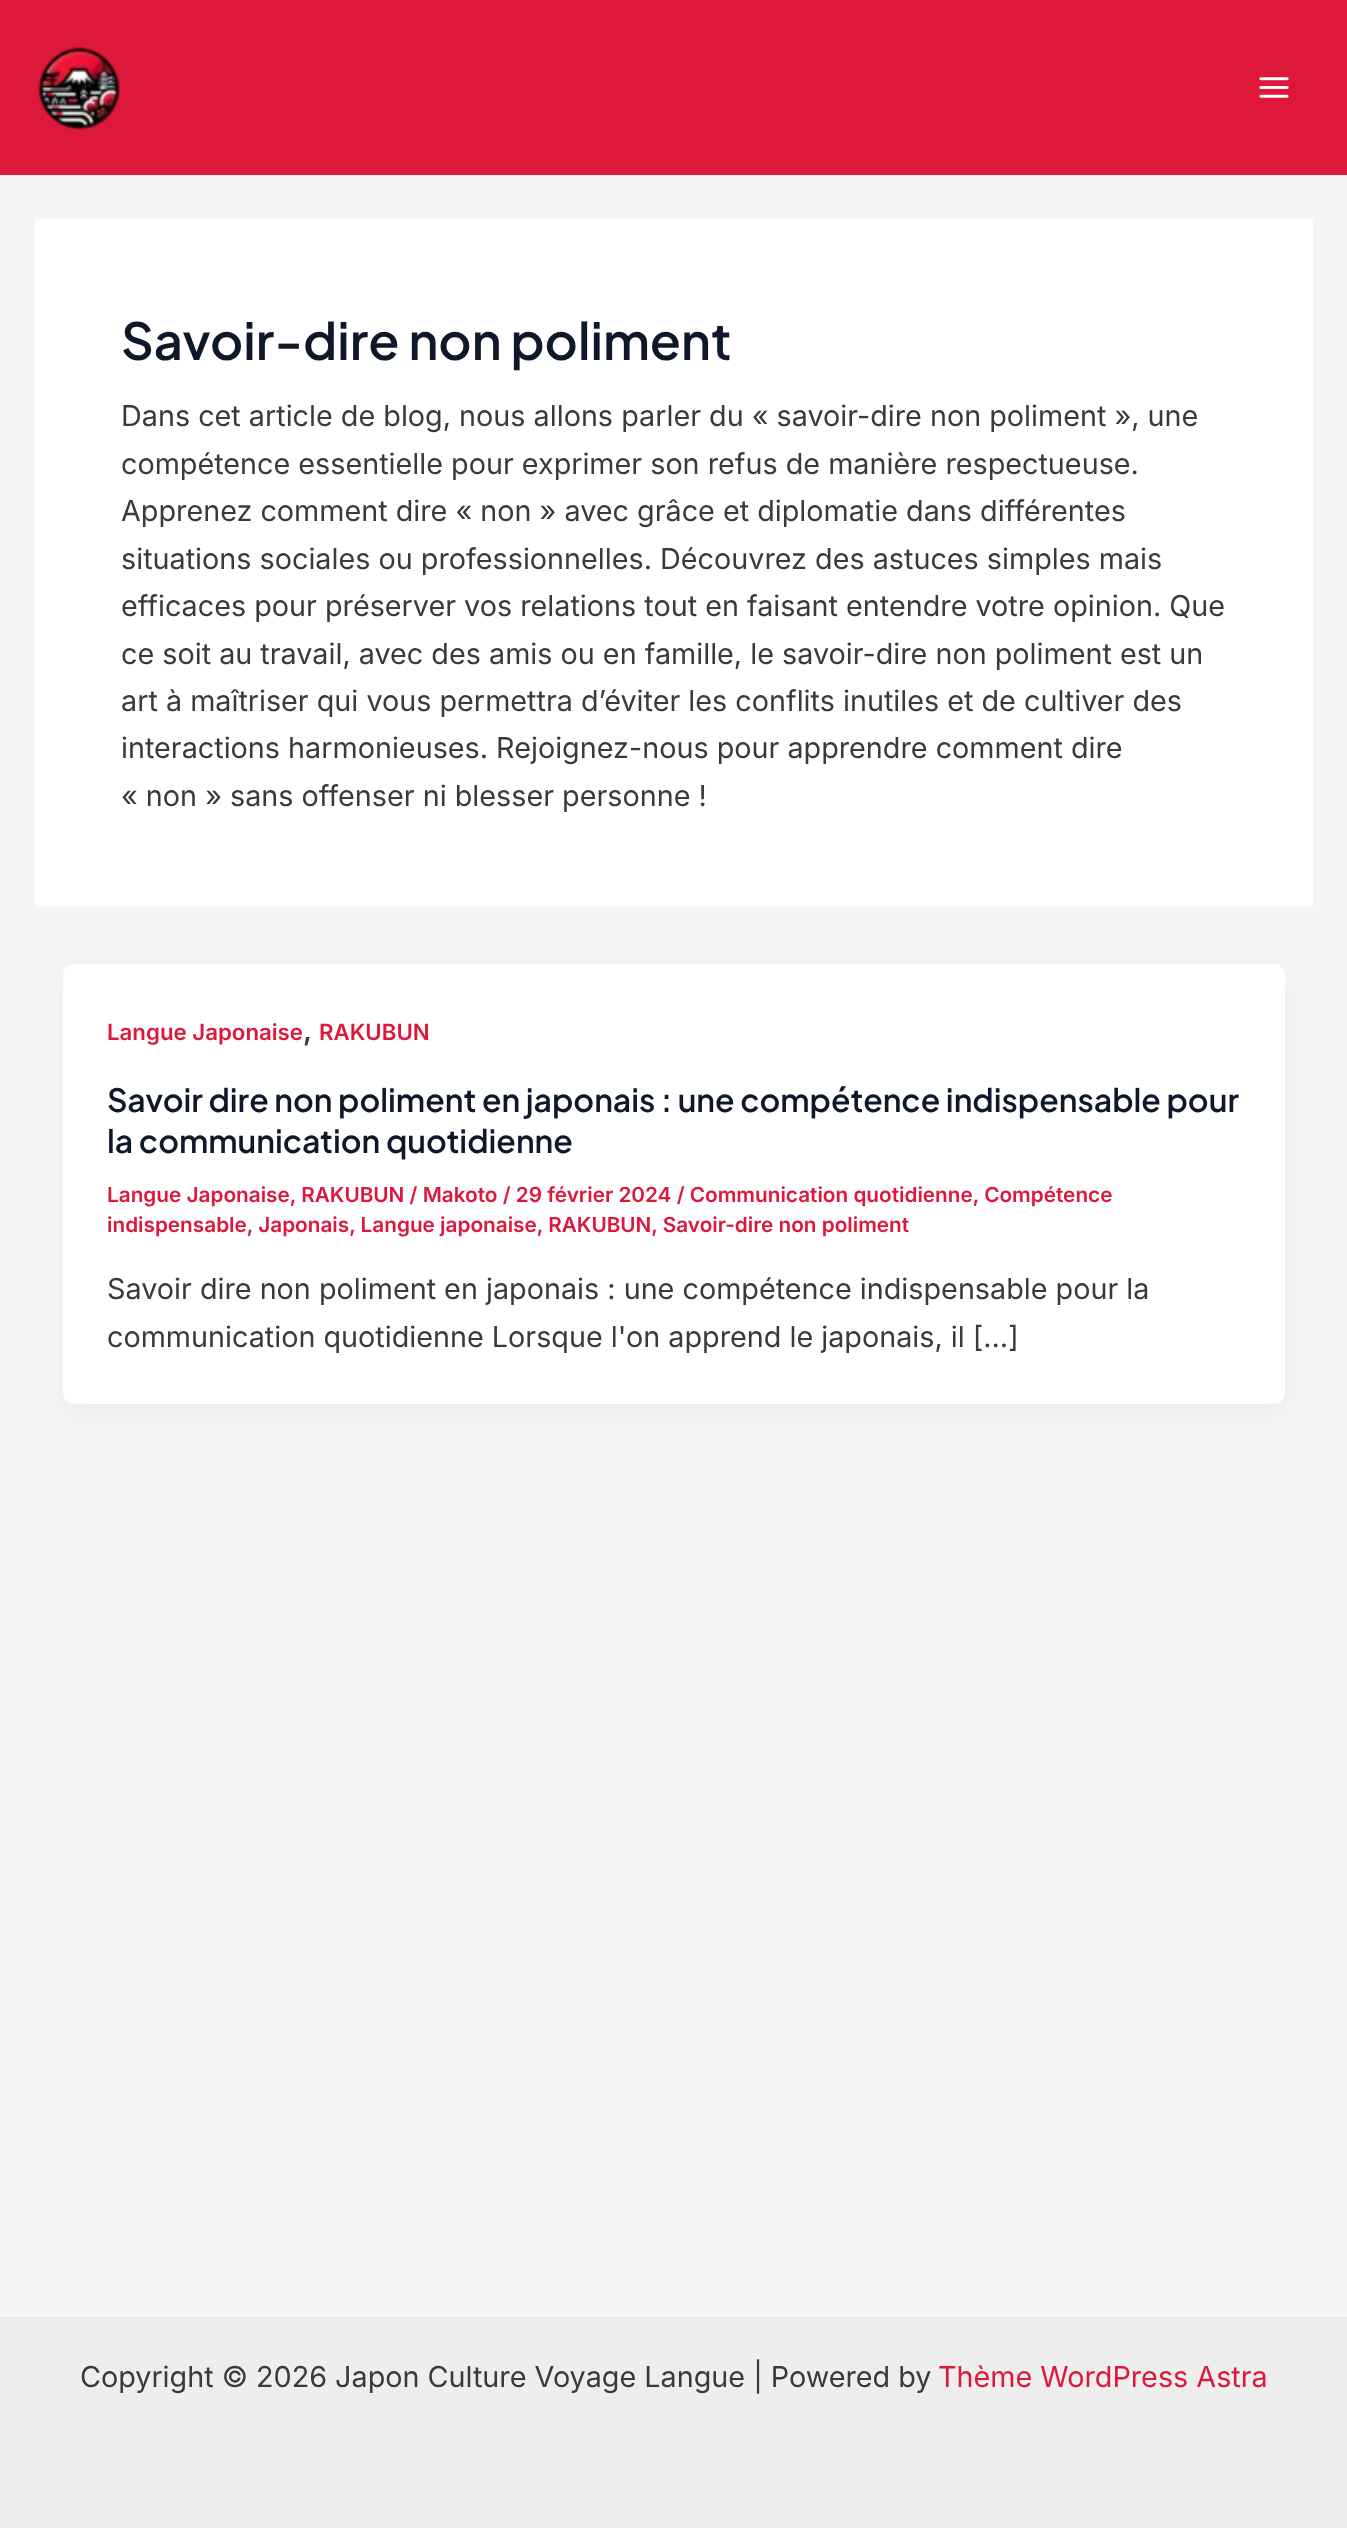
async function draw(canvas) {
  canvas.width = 1347
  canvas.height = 2528
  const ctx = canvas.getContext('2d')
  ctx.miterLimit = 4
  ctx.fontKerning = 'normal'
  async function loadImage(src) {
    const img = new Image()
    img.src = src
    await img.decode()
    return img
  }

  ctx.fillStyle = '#f5f5f5'
  ctx.fillRect(0, 0, 1347, 2528)
  ctx.fillStyle = '#dd183b'
  ctx.fillRect(0, 0, 1347, 175)
  ctx.drawImage(await loadImage('image0.png'), 38, 46, 83, 84)
  ctx.drawImage(await loadImage('image1.png'), 1259, 77, 30, 21)
  ctx.fillStyle = '#fff'
  ctx.fillRect(35, 219, 1278, 688)
  ctx.font = '600 51px Plus Jakarta Sans'
  ctx.fillStyle = '#0f172a'
  ctx.fillText('Savoir-dire non poliment', 121, 360)
  ctx.font = '28.75px Inter'
  ctx.fillStyle = '#3a3a3a'
  ctx.fillText('Dans cet article de blog, nous allons parler du « savoir-dire non poliment », une', 121, 426)
  ctx.fillText('compétence essentielle pour exprimer son refus de manière respectueuse.', 121, 474)
  ctx.fillText('Apprenez comment dire « non » avec grâce et diplomatie dans différentes', 121, 521)
  ctx.fillText('situations sociales ou professionnelles. Découvrez des astuces simples mais', 121, 569)
  ctx.fillText('efficaces pour préserver vos relations tout en faisant entendre votre opinion. Que', 121, 616)
  ctx.fillText('ce soit au travail, avec des amis ou en famille, le savoir-dire non poliment est un', 121, 664)
  ctx.fillText('art à maîtriser qui vous permettra d’éviter les conflits inutiles et de cultiver des', 121, 711)
  ctx.fillText('interactions harmonieuses. Rejoignez-nous pour apprendre comment dire', 121, 758)
  ctx.fillText('« non » sans offenser ni blesser personne !', 121, 806)
  ctx.fillStyle = '#1018280d'
  ctx.filter = 'blur(13px)'
  ctx.beginPath()
  ctx.roundRect(67, 978, 1214, 433, 7)
  ctx.fill()
  ctx.filter = 'none'
  ctx.fillStyle = '#fff'
  ctx.beginPath()
  ctx.roundRect(63, 964, 1222, 440, 11)
  ctx.fill()
  ctx.font = '600 22.25px Inter'
  ctx.fillStyle = '#dd183b'
  ctx.fillText('Langue Japonaise', 107, 1040)
  ctx.font = '600 28.75px Inter'
  ctx.fillStyle = '#3a3a3a'
  ctx.fillText(',', 303, 1040)
  ctx.font = '600 22.25px Inter'
  ctx.fillStyle = '#dd183b'
  ctx.fillText('RAKUBUN', 319, 1040)
  ctx.font = '600 31.9px Plus Jakarta Sans'
  ctx.fillStyle = '#0f172a'
  ctx.fillText('Savoir dire non poliment en japonais : une compétence indispensable pour', 107, 1112)
  ctx.fillText('la communication quotidienne', 107, 1153)
  ctx.font = '600 20.75px Inter'
  ctx.fillStyle = '#dd183b'
  ctx.fillText('Langue Japonaise, RAKUBUN / Makoto / 29 février 2024 / Communication quotidienne, Compétence', 107, 1202)
  ctx.fillText('indispensable, Japonais, Langue japonaise, RAKUBUN, Savoir-dire non poliment', 107, 1232)
  ctx.font = '28.75px Inter'
  ctx.fillStyle = '#3a3a3a'
  ctx.fillText('Savoir dire non poliment en japonais : une compétence indispensable pour la', 107, 1299)
  ctx.fillText('communication quotidienne Lorsque l\'on apprend le japonais, il […]', 107, 1347)
  ctx.fillStyle = '#eee'
  ctx.fillRect(0, 2319, 1347, 209)
  ctx.fillStyle = '#eaeaea'
  ctx.fillRect(0, 2317, 1347, 2)
  ctx.fillStyle = '#3a3a3a'
  ctx.fillText('Copyright © 2026 Japon Culture Voyage Langue | Powered by', 80, 2387)
  ctx.fillStyle = '#dd183b'
  ctx.fillText('Thème WordPress Astra', 938, 2387)
}

draw(document.querySelector('canvas'))
